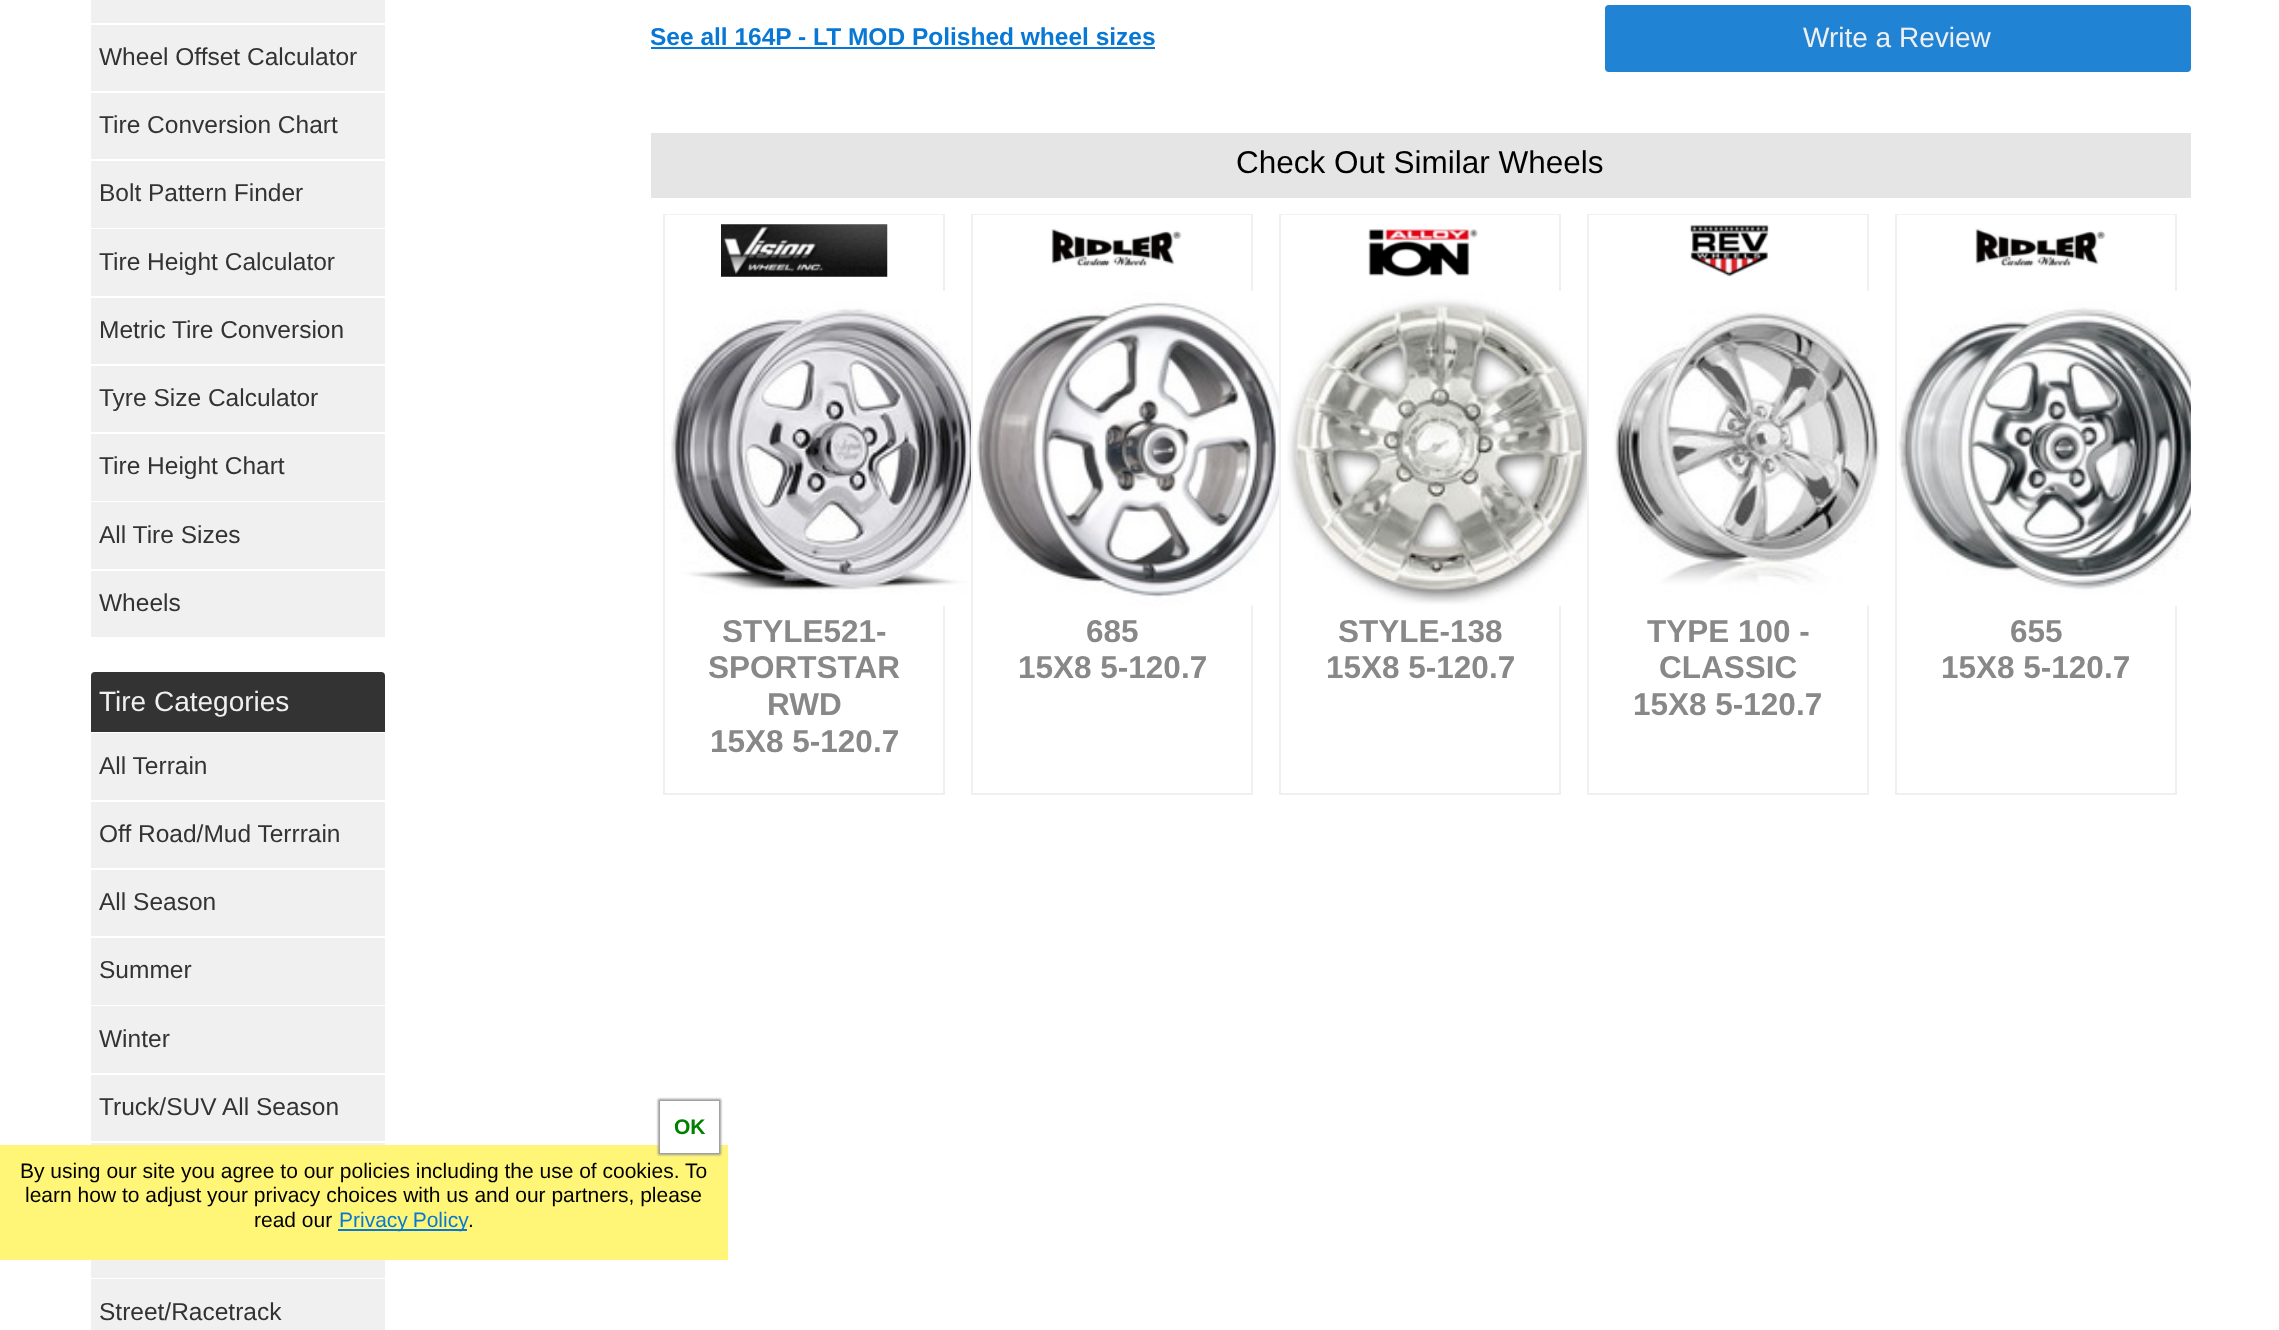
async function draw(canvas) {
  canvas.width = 2279
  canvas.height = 1330
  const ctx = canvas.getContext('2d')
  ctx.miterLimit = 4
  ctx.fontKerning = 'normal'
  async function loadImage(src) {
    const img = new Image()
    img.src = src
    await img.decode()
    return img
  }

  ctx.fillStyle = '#fff'
  ctx.fillRect(0, 0, 2279, 1330)
  ctx.fillStyle = '#f0f0f0'
  ctx.fillRect(91, 0, 294, 23)
  ctx.fillRect(91, 25, 294, 66)
  ctx.font = '24.5px Liberation Sans'
  ctx.fillStyle = '#333'
  ctx.fillText('Wheel Offset Calculator', 99, 65)
  ctx.fillStyle = '#f0f0f0'
  ctx.fillRect(91, 93, 294, 66)
  ctx.fillStyle = '#333'
  ctx.fillText('Tire Conversion Chart', 99, 133)
  ctx.fillStyle = '#f0f0f0'
  ctx.fillRect(91, 161, 294, 67)
  ctx.fillStyle = '#333'
  ctx.fillText('Bolt Pattern Finder', 99, 201)
  ctx.fillStyle = '#f0f0f0'
  ctx.fillRect(91, 229, 294, 67)
  ctx.fillStyle = '#333'
  ctx.fillText('Tire Height Calculator', 99, 270)
  ctx.fillStyle = '#f0f0f0'
  ctx.fillRect(91, 298, 294, 66)
  ctx.fillStyle = '#333'
  ctx.fillText('Metric Tire Conversion', 99, 338)
  ctx.fillStyle = '#f0f0f0'
  ctx.fillRect(91, 366, 294, 66)
  ctx.fillStyle = '#333'
  ctx.fillText('Tyre Size Calculator', 99, 406)
  ctx.fillStyle = '#f0f0f0'
  ctx.fillRect(91, 434, 294, 67)
  ctx.fillStyle = '#333'
  ctx.fillText('Tire Height Chart', 99, 474)
  ctx.fillStyle = '#f0f0f0'
  ctx.fillRect(91, 502, 294, 67)
  ctx.fillStyle = '#333'
  ctx.fillText('All Tire Sizes', 99, 543)
  ctx.fillStyle = '#f0f0f0'
  ctx.fillRect(91, 571, 294, 66)
  ctx.fillStyle = '#333'
  ctx.fillText('Wheels', 99, 611)
  ctx.beginPath()
  ctx.roundRect(91, 672, 294, 60, [4, 4, 0, 0])
  ctx.fill()
  ctx.font = '28px Liberation Sans'
  ctx.fillStyle = '#f0f0f0'
  ctx.fillText('Tire Categories', 99, 711)
  ctx.fillRect(91, 733, 294, 67)
  ctx.font = '24.5px Liberation Sans'
  ctx.fillStyle = '#333'
  ctx.fillText('All Terrain', 99, 774)
  ctx.fillStyle = '#f0f0f0'
  ctx.fillRect(91, 802, 294, 66)
  ctx.fillStyle = '#333'
  ctx.fillText('Off Road/Mud Terrrain', 99, 842)
  ctx.fillStyle = '#f0f0f0'
  ctx.fillRect(91, 870, 294, 66)
  ctx.fillStyle = '#333'
  ctx.fillText('All Season', 99, 910)
  ctx.fillStyle = '#f0f0f0'
  ctx.fillRect(91, 938, 294, 67)
  ctx.fillStyle = '#333'
  ctx.fillText('Summer', 99, 978)
  ctx.fillStyle = '#f0f0f0'
  ctx.fillRect(91, 1006, 294, 67)
  ctx.fillStyle = '#333'
  ctx.fillText('Winter', 99, 1047)
  ctx.fillStyle = '#f0f0f0'
  ctx.fillRect(91, 1075, 294, 66)
  ctx.fillStyle = '#333'
  ctx.fillText('Truck/SUV All Season', 99, 1115)
  ctx.fillStyle = '#f0f0f0'
  ctx.fillRect(91, 1143, 294, 2)
  ctx.fillRect(91, 1260, 294, 18)
  ctx.fillRect(91, 1279, 294, 51)
  ctx.fillStyle = '#333'
  ctx.fillText('Street/Racetrack', 99, 1320)
  ctx.font = 'bold 24.5px Liberation Sans'
  ctx.fillStyle = '#0878d4'
  ctx.fillText('See all 164P - LT MOD Polished wheel sizes', 650, 45)
  ctx.fillRect(651, 47, 504, 2)
  ctx.fillStyle = '#2083d4'
  ctx.beginPath()
  ctx.roundRect(1605, 5, 586, 67, 4)
  ctx.fill()
  ctx.font = '28px Liberation Sans'
  ctx.fillStyle = '#f0f0f0'
  ctx.fillText('Write a Review', 1803, 47)
  ctx.fillStyle = '#e5e5e5'
  ctx.fillRect(651, 133, 1540, 65)
  ctx.font = '31.5px Liberation Sans'
  ctx.fillStyle = '#000'
  ctx.fillText('Check Out Similar Wheels', 1236, 173)
  ctx.strokeStyle = '#f0f0f0'
  ctx.lineWidth = 2
  ctx.strokeRect(664, 215, 280, 579)
  ctx.fillStyle = '#fff'
  ctx.fillRect(665, 215, 278, 1)
  ctx.drawImage(await loadImage('image0.png'), 721, 224, 167, 53)
  ctx.drawImage(await loadImage('image1.png'), 665, 291, 306, 315)
  ctx.font = 'bold 31.5px Liberation Sans'
  ctx.fillStyle = '#888'
  ctx.fillText('STYLE521-', 722, 642)
  ctx.fillText('SPORTSTAR', 708, 678)
  ctx.fillText('RWD', 767, 715)
  ctx.fillText('15X8 5-120.7', 710, 752)
  ctx.strokeRect(972, 215, 280, 579)
  ctx.fillStyle = '#fff'
  ctx.fillRect(973, 215, 278, 1)
  ctx.drawImage(await loadImage('image2.png'), 1051, 228, 131, 39)
  ctx.drawImage(await loadImage('image3.png'), 976, 291, 303, 315)
  ctx.fillStyle = '#888'
  ctx.fillText('685', 1086, 642)
  ctx.fillText('15X8 5-120.7', 1018, 678)
  ctx.strokeRect(1280, 215, 280, 579)
  ctx.fillStyle = '#fff'
  ctx.fillRect(1281, 215, 278, 1)
  ctx.drawImage(await loadImage('image4.png'), 1368, 229, 110, 48)
  ctx.drawImage(await loadImage('image5.png'), 1287, 291, 300, 315)
  ctx.fillStyle = '#888'
  ctx.fillText('STYLE-138', 1338, 642)
  ctx.fillText('15X8 5-120.7', 1326, 678)
  ctx.strokeRect(1588, 215, 280, 579)
  ctx.fillStyle = '#fff'
  ctx.fillRect(1589, 215, 278, 1)
  ctx.drawImage(await loadImage('image6.png'), 1689, 224, 81, 53)
  ctx.drawImage(await loadImage('image7.png'), 1612, 291, 268, 315)
  ctx.fillStyle = '#888'
  ctx.fillText('TYPE 100 -', 1647, 642)
  ctx.fillText('CLASSIC', 1659, 678)
  ctx.fillText('15X8 5-120.7', 1633, 715)
  ctx.strokeRect(1896, 215, 280, 579)
  ctx.fillStyle = '#fff'
  ctx.fillRect(1897, 215, 278, 1)
  ctx.drawImage(await loadImage('image2.png'), 1975, 228, 131, 39)
  ctx.drawImage(await loadImage('image8.png'), 1898, 291, 293, 315)
  ctx.fillStyle = '#888'
  ctx.fillText('655', 2010, 642)
  ctx.fillText('15X8 5-120.7', 1941, 678)
  ctx.fillStyle = '#fff678'
  ctx.fillRect(0, 1145, 728, 115)
  ctx.fillStyle = '#999'
  ctx.filter = 'blur(1px)'
  ctx.beginPath()
  ctx.rect(658, 1099, 63, 56)
  ctx.fill()
  ctx.filter = 'none'
  ctx.fillStyle = '#fff'
  ctx.fillRect(660, 1101, 59, 52)
  ctx.font = 'bold 21px Liberation Sans'
  ctx.fillStyle = '#008000'
  ctx.fillText('OK', 674, 1134)
  ctx.font = '21px Liberation Sans'
  ctx.fillStyle = '#000'
  ctx.fillText('By using our site you agree to our policies including the use of cookies. To', 20, 1178)
  ctx.fillText('learn how to adjust your privacy choices with us and our partners, please', 25, 1202)
  ctx.fillText('read our', 254, 1227)
  ctx.fillStyle = '#0878d4'
  ctx.fillRect(338, 1229, 129, 2)
  ctx.wordSpacing = '-1px'
  ctx.fillText('Privacy Policy', 339, 1227)
  ctx.wordSpacing = '0px'
  ctx.fillStyle = '#000'
  ctx.fillText('.', 468, 1227)
}

draw(document.querySelector('canvas'))
